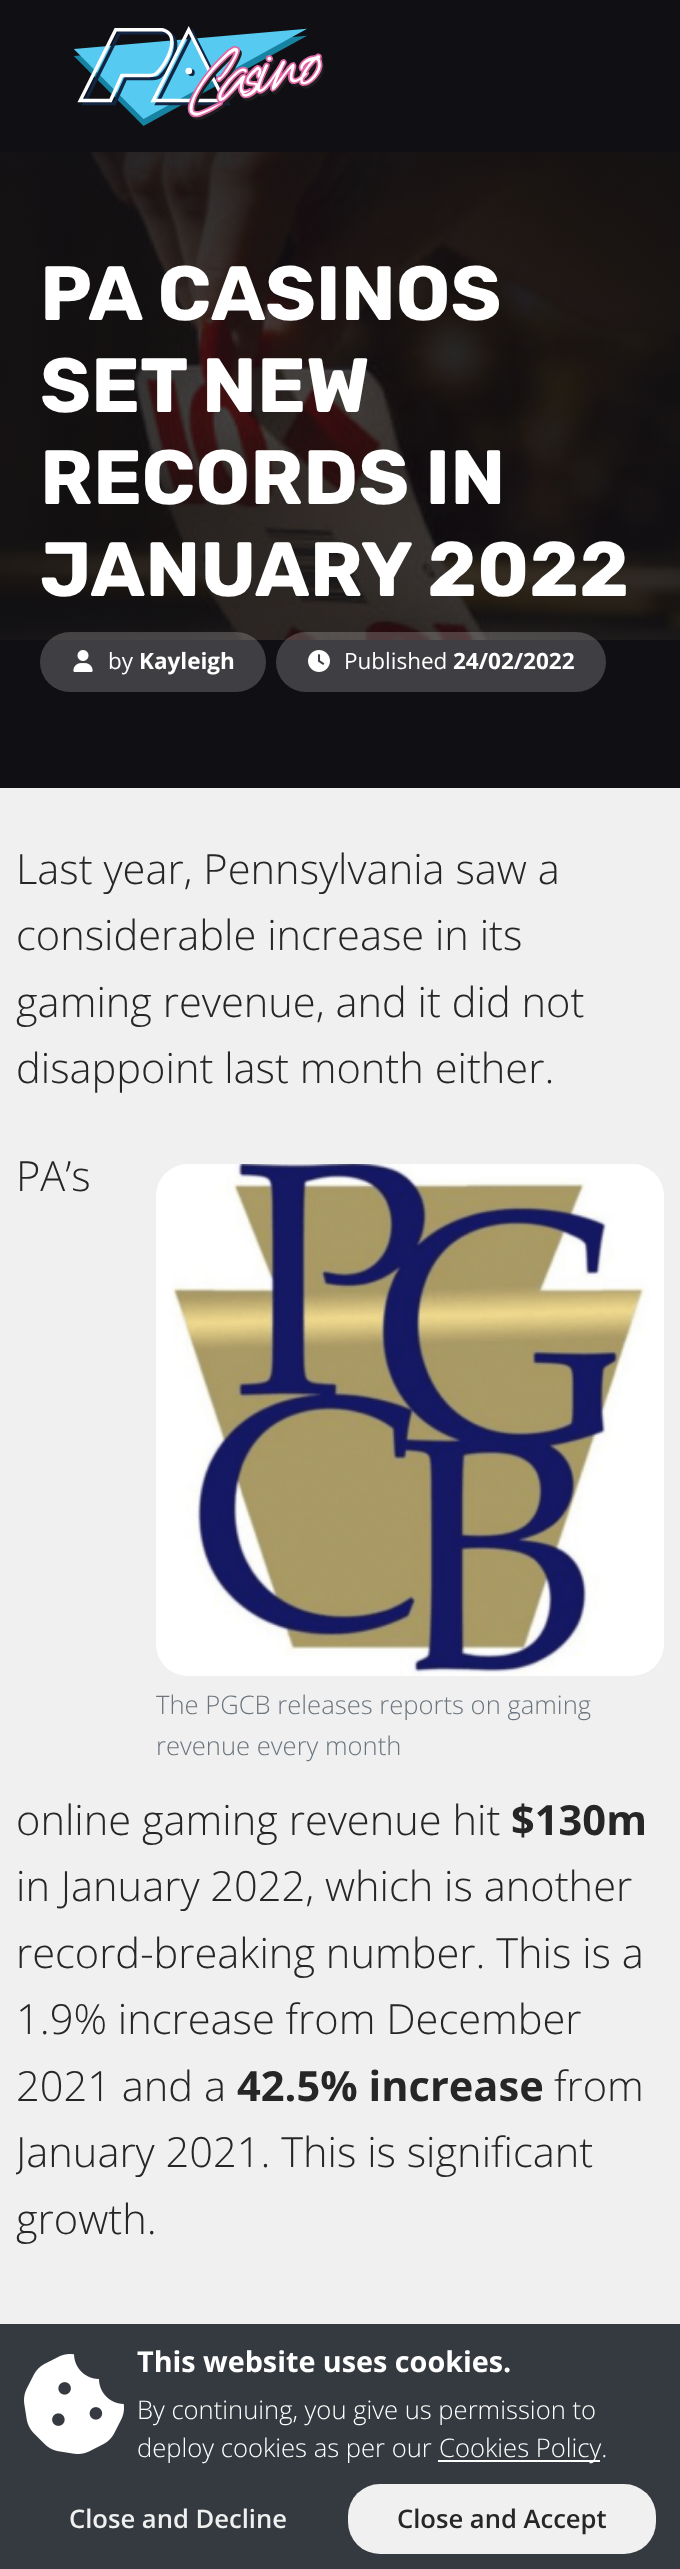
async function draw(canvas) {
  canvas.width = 680
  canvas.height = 2569
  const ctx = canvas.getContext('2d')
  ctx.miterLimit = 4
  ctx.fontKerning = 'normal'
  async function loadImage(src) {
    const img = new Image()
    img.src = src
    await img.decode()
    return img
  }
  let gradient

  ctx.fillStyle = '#101014'
  ctx.fillRect(0, 0, 680, 2569)
  ctx.drawImage(await loadImage('image0.png'), 0, 152, 680, 488)
  ctx.drawImage(await loadImage('image1.png'), 74, 26, 250, 100)
  ctx.fillStyle = '#101014b3'
  ctx.fillRect(0, 152, 680, 488)
  gradient = ctx.createRadialGradient(340, 502.38, 0, 340, 502.38, 481)
  gradient.addColorStop(0, '#10101400')
  gradient.addColorStop(1, '#101014cc')
  ctx.fillStyle = gradient
  ctx.beginPath()
  ctx.rect(0, 152, 680, 488)
  ctx.save()
  ctx.clip()
  ctx.scale(1, 450 / 481)
  ctx.fillRect(0, 0, 680, 2746)
  ctx.restore()
  ctx.font = '300 76.75px Rubik'
  ctx.fillStyle = '#fff'
  ctx.fillText('PA CASINOS', 40, 320)
  ctx.wordSpacing = '-1px'
  ctx.fillText('SET NEW', 40, 412)
  ctx.wordSpacing = '0px'
  ctx.fillText('RECORDS IN', 40, 504)
  ctx.fillText('JANUARY 2022', 40, 596)
  ctx.fillStyle = '#ffffff33'
  ctx.beginPath()
  ctx.roundRect(40, 632, 226, 60, 30)
  ctx.fill()
  ctx.drawImage(await loadImage('image2.png'), 73, 650, 20, 22)
  ctx.font = '22.5px Open Sans'
  ctx.fillStyle = '#fff'
  ctx.fillText('by', 108, 669)
  ctx.font = 'bold 22.5px Open Sans'
  ctx.fillText('Kayleigh', 139, 669)
  ctx.fillStyle = '#ffffff33'
  ctx.beginPath()
  ctx.roundRect(276, 632, 330, 60, 30)
  ctx.fill()
  ctx.drawImage(await loadImage('image3.png'), 308, 650, 22, 22)
  ctx.font = '22.5px Open Sans'
  ctx.fillStyle = '#fff'
  ctx.fillText('Published', 344, 669)
  ctx.font = 'bold 22.5px Open Sans'
  ctx.fillText('24/02/2022', 453, 669)
  ctx.fillStyle = '#f0f0f0'
  ctx.fillRect(0, 788, 680, 1536)
  ctx.font = '300 41.6px Open Sans'
  ctx.fillStyle = '#262626'
  ctx.fillText('Last year, Pennsylvania saw a', 16, 884)
  ctx.fillText('considerable increase in its', 16, 950)
  ctx.fillText('gaming revenue, and it did not', 16, 1017)
  ctx.fillText('disappoint last month either.', 16, 1083)
  ctx.fillText('PA’s', 16, 1191)
  ctx.fillText('online gaming revenue hit', 16, 1835)
  ctx.font = 'bold 41.6px Open Sans'
  ctx.fillText('$130m', 511, 1835)
  ctx.font = '300 41.6px Open Sans'
  ctx.fillText('in January 2022, which is another', 16, 1901)
  ctx.fillText('record-breaking number. This is a', 16, 1968)
  ctx.fillText('1.9% increase from December', 16, 2034)
  ctx.fillText('2021 and a', 16, 2101)
  ctx.font = 'bold 41.6px Open Sans'
  ctx.fillText('42.5% increase', 237, 2101)
  ctx.font = '300 41.6px Open Sans'
  ctx.fillText('from', 554, 2101)
  ctx.save()
  ctx.beginPath()
  ctx.rect(16, 836, 648, 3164)
  ctx.clip()
  ctx.fillText('January 2021. This is significant', 16, 2167)
  ctx.restore()
  ctx.fillText('growth.', 16, 2234)
  ctx.drawImage(await loadImage('image4.png'), 156, 1164, 508, 512)
  ctx.font = '300 25.6px Open Sans'
  ctx.fillStyle = '#6c757d'
  ctx.fillText('The PGCB releases reports on gaming', 156, 1714)
  ctx.fillText('revenue every month', 156, 1755)
  ctx.fillStyle = '#343a40'
  ctx.fillRect(0, 2324, 680, 245)
  ctx.drawImage(await loadImage('image5.png'), 24, 2354, 100, 100)
  ctx.font = 'bold 28.75px Open Sans'
  ctx.fillStyle = '#fff'
  ctx.fillText('This website uses cookies.', 137, 2372)
  ctx.font = '300 25.6px Open Sans'
  ctx.fillText('By continuing, you give us permission to', 137, 2419)
  ctx.fillText('deploy cookies as per our', 137, 2457)
  ctx.fillRect(438, 2460, 162, 2)
  ctx.fillText('Cookies Policy.', 439, 2457)
  ctx.font = '600 25.6px Open Sans'
  ctx.fillStyle = '#f0f0f0'
  ctx.fillText('Close and Decline', 69, 2528)
  ctx.beginPath()
  ctx.roundRect(348, 2484, 308, 70, 32)
  ctx.fill()
  ctx.fillStyle = '#262626'
  ctx.fillText('Close and Accept', 397, 2528)
}

draw(document.querySelector('canvas'))
